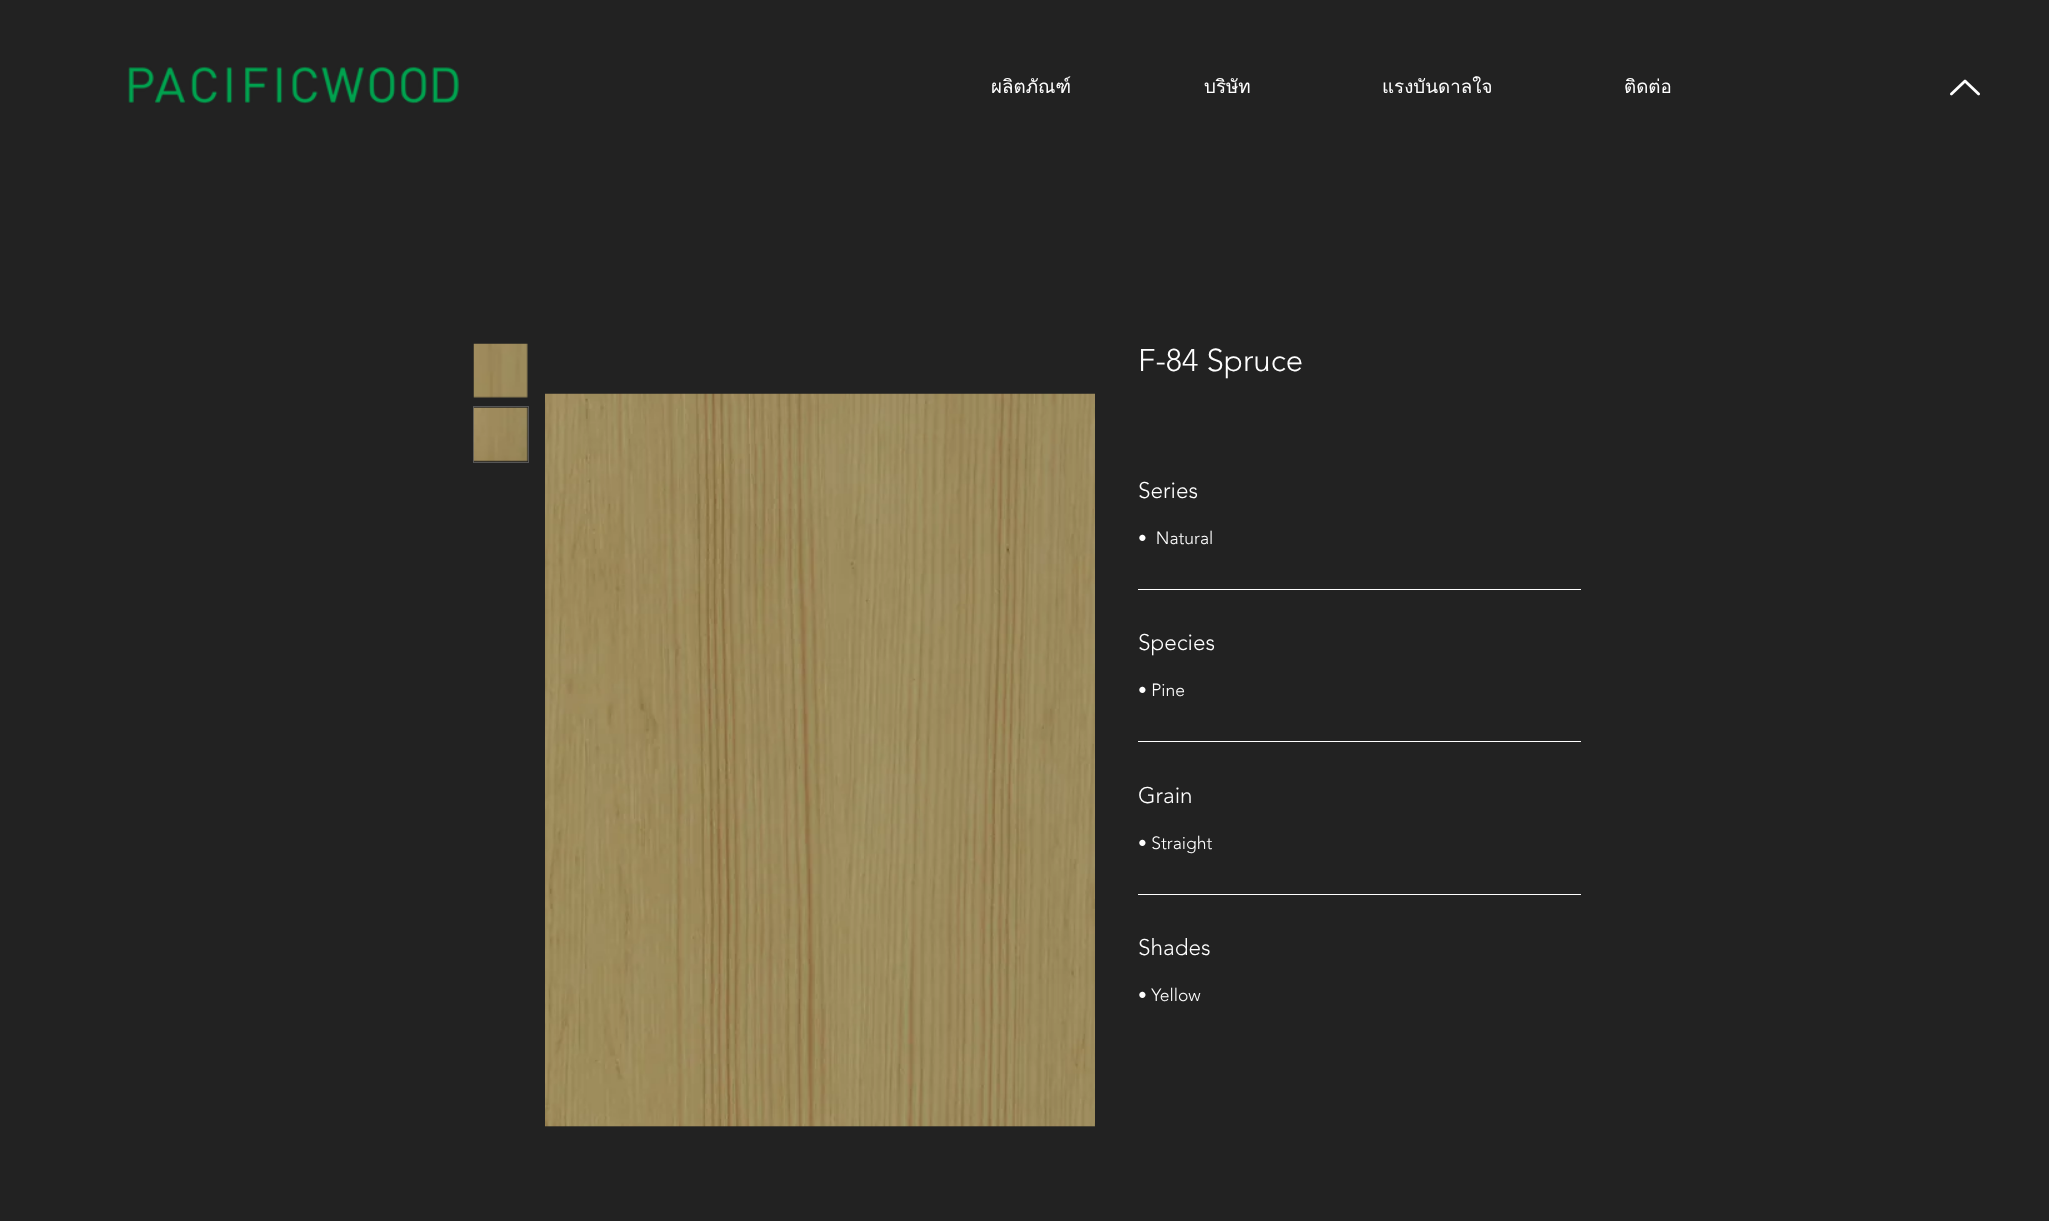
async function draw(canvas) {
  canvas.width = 2049
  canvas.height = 1221
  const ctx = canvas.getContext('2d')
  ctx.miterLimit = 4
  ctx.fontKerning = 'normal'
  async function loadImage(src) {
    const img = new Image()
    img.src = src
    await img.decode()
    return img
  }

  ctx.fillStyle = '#222'
  ctx.fillRect(0, 0, 2049, 1221)
  ctx.drawImage(await loadImage('image0.png'), 128, 66, 331, 38)
  ctx.font = '18.75px Loma'
  ctx.fillStyle = '#fff'
  ctx.fillText('ผลิตภัณฑ์', 991, 93)
  ctx.fillText('บริษัท', 1204, 93)
  ctx.fillText('แรงบันดาลใจ', 1382, 93)
  ctx.fillText('ติดต่อ', 1624, 93)
  ctx.drawImage(await loadImage('image1.png'), 1950, 79, 30, 17)
  ctx.drawImage(await loadImage('image2.png'), 473, 343, 55, 55)
  ctx.strokeStyle = '#555'
  ctx.strokeRect(473.5, 406.5, 55, 56)
  ctx.drawImage(await loadImage('image3.png'), 473, 407, 55, 55)
  ctx.drawImage(await loadImage('image4.png'), 545, 393, 550, 734)
  ctx.font = '300 31.25px "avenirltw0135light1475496"'
  ctx.fillText('F-84 Spruce', 1138, 371)
  ctx.fillRect(1138, 589, 443, 1)
  ctx.font = '300 22.5px "avenirltw0135light1475496"'
  ctx.fillText('Series', 1138, 498)
  ctx.font = '300 17.5px "avenirltw0135light1475496"'
  ctx.fillText('•  Natural', 1138, 544)
  ctx.fillRect(1138, 741, 443, 1)
  ctx.font = '300 22.5px "avenirltw0135light1475496"'
  ctx.fillText('Species', 1138, 650)
  ctx.font = '300 17.5px "avenirltw0135light1475496"'
  ctx.fillText('• Pine', 1138, 696)
  ctx.fillRect(1138, 894, 443, 1)
  ctx.font = '300 22.5px "avenirltw0135light1475496"'
  ctx.fillText('Grain', 1138, 803)
  ctx.font = '300 17.5px "avenirltw0135light1475496"'
  ctx.fillText('• Straight', 1138, 849)
  ctx.font = '300 22.5px "avenirltw0135light1475496"'
  ctx.fillText('Shades', 1138, 955)
  ctx.font = '300 17.5px "avenirltw0135light1475496"'
  ctx.fillText('• Yellow', 1138, 1001)
}

draw(document.querySelector('canvas'))
